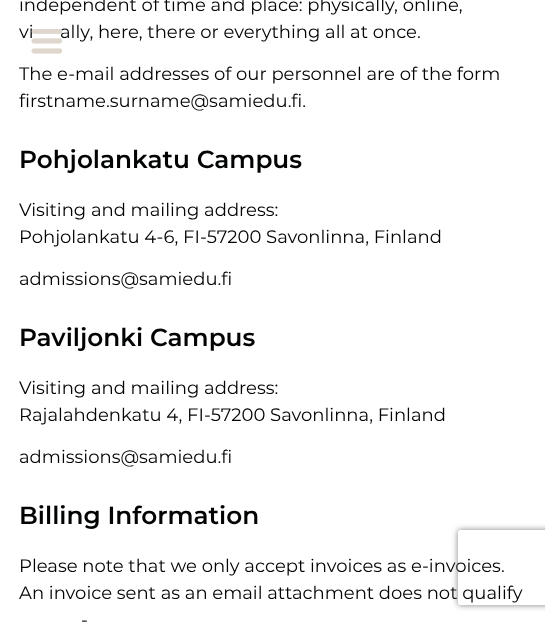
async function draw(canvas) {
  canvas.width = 545
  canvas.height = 622
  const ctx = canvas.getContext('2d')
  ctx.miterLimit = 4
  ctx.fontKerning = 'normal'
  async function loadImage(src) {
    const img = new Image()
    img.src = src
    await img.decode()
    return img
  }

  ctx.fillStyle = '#fff'
  ctx.fillRect(0, 0, 545, 622)
  ctx.font = '18px Montserrat'
  ctx.fillStyle = '#020304'
  ctx.fillText('independent of time and place: physically, online,', 19, 11)
  ctx.fillText('vi', 19, 38)
  ctx.fillText('ally, here, there or everything all at once.', 60, 38)
  ctx.fillText('The e-mail addresses of our personnel are of the form', 19, 80)
  ctx.fillText('firstname.surname@samiedu.fi.', 19, 107)
  ctx.font = '600 24.75px Montserrat'
  ctx.fillText('Pohjolankatu Campus', 19, 168)
  ctx.font = '18px Montserrat'
  ctx.fillText('Visiting and mailing address:', 19, 216)
  ctx.fillText('Pohjolankatu 4-6, FI-57200 Savonlinna, Finland', 19, 243)
  ctx.fillText('admissions@samiedu.fi', 19, 285)
  ctx.font = '600 24.75px Montserrat'
  ctx.fillText('Paviljonki Campus', 19, 346)
  ctx.font = '18px Montserrat'
  ctx.fillText('Visiting and mailing address:', 19, 394)
  ctx.fillText('Rajalahdenkatu 4, FI-57200 Savonlinna, Finland', 19, 421)
  ctx.fillText('admissions@samiedu.fi', 19, 463)
  ctx.font = '600 24.75px Montserrat'
  ctx.fillText('Billing Information', 19, 524)
  ctx.font = '18px Montserrat'
  ctx.fillText('Please note that we only accept invoices as e-invoices.', 19, 572)
  ctx.fillText('An invoice sent as an email attachment does not qualify', 19, 599)
  ctx.fillText('-', 81, 626)
  ctx.drawImage(await loadImage('image0.png'), 31, 29, 31, 25)
  ctx.save()
  ctx.beginPath()
  ctx.moveTo(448, 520)
  ctx.lineTo(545, 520)
  ctx.lineTo(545, 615)
  ctx.lineTo(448, 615)
  ctx.closePath()
  ctx.moveTo(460.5, 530)
  ctx.lineTo(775.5, 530)
  ctx.bezierCurveTo(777, 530, 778, 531, 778, 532.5)
  ctx.lineTo(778, 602.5)
  ctx.bezierCurveTo(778, 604, 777, 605, 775.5, 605)
  ctx.lineTo(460.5, 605)
  ctx.bezierCurveTo(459, 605, 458, 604, 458, 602.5)
  ctx.lineTo(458, 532.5)
  ctx.bezierCurveTo(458, 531, 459, 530, 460.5, 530)
  ctx.closePath()
  ctx.clip('evenodd')
  ctx.fillStyle = '#808080'
  ctx.filter = 'blur(3px)'
  ctx.beginPath()
  ctx.roundRect(458, 530, 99, 75, 2.5)
  ctx.fill()
  ctx.filter = 'none'
  ctx.restore()
}

draw(document.querySelector('canvas'))
